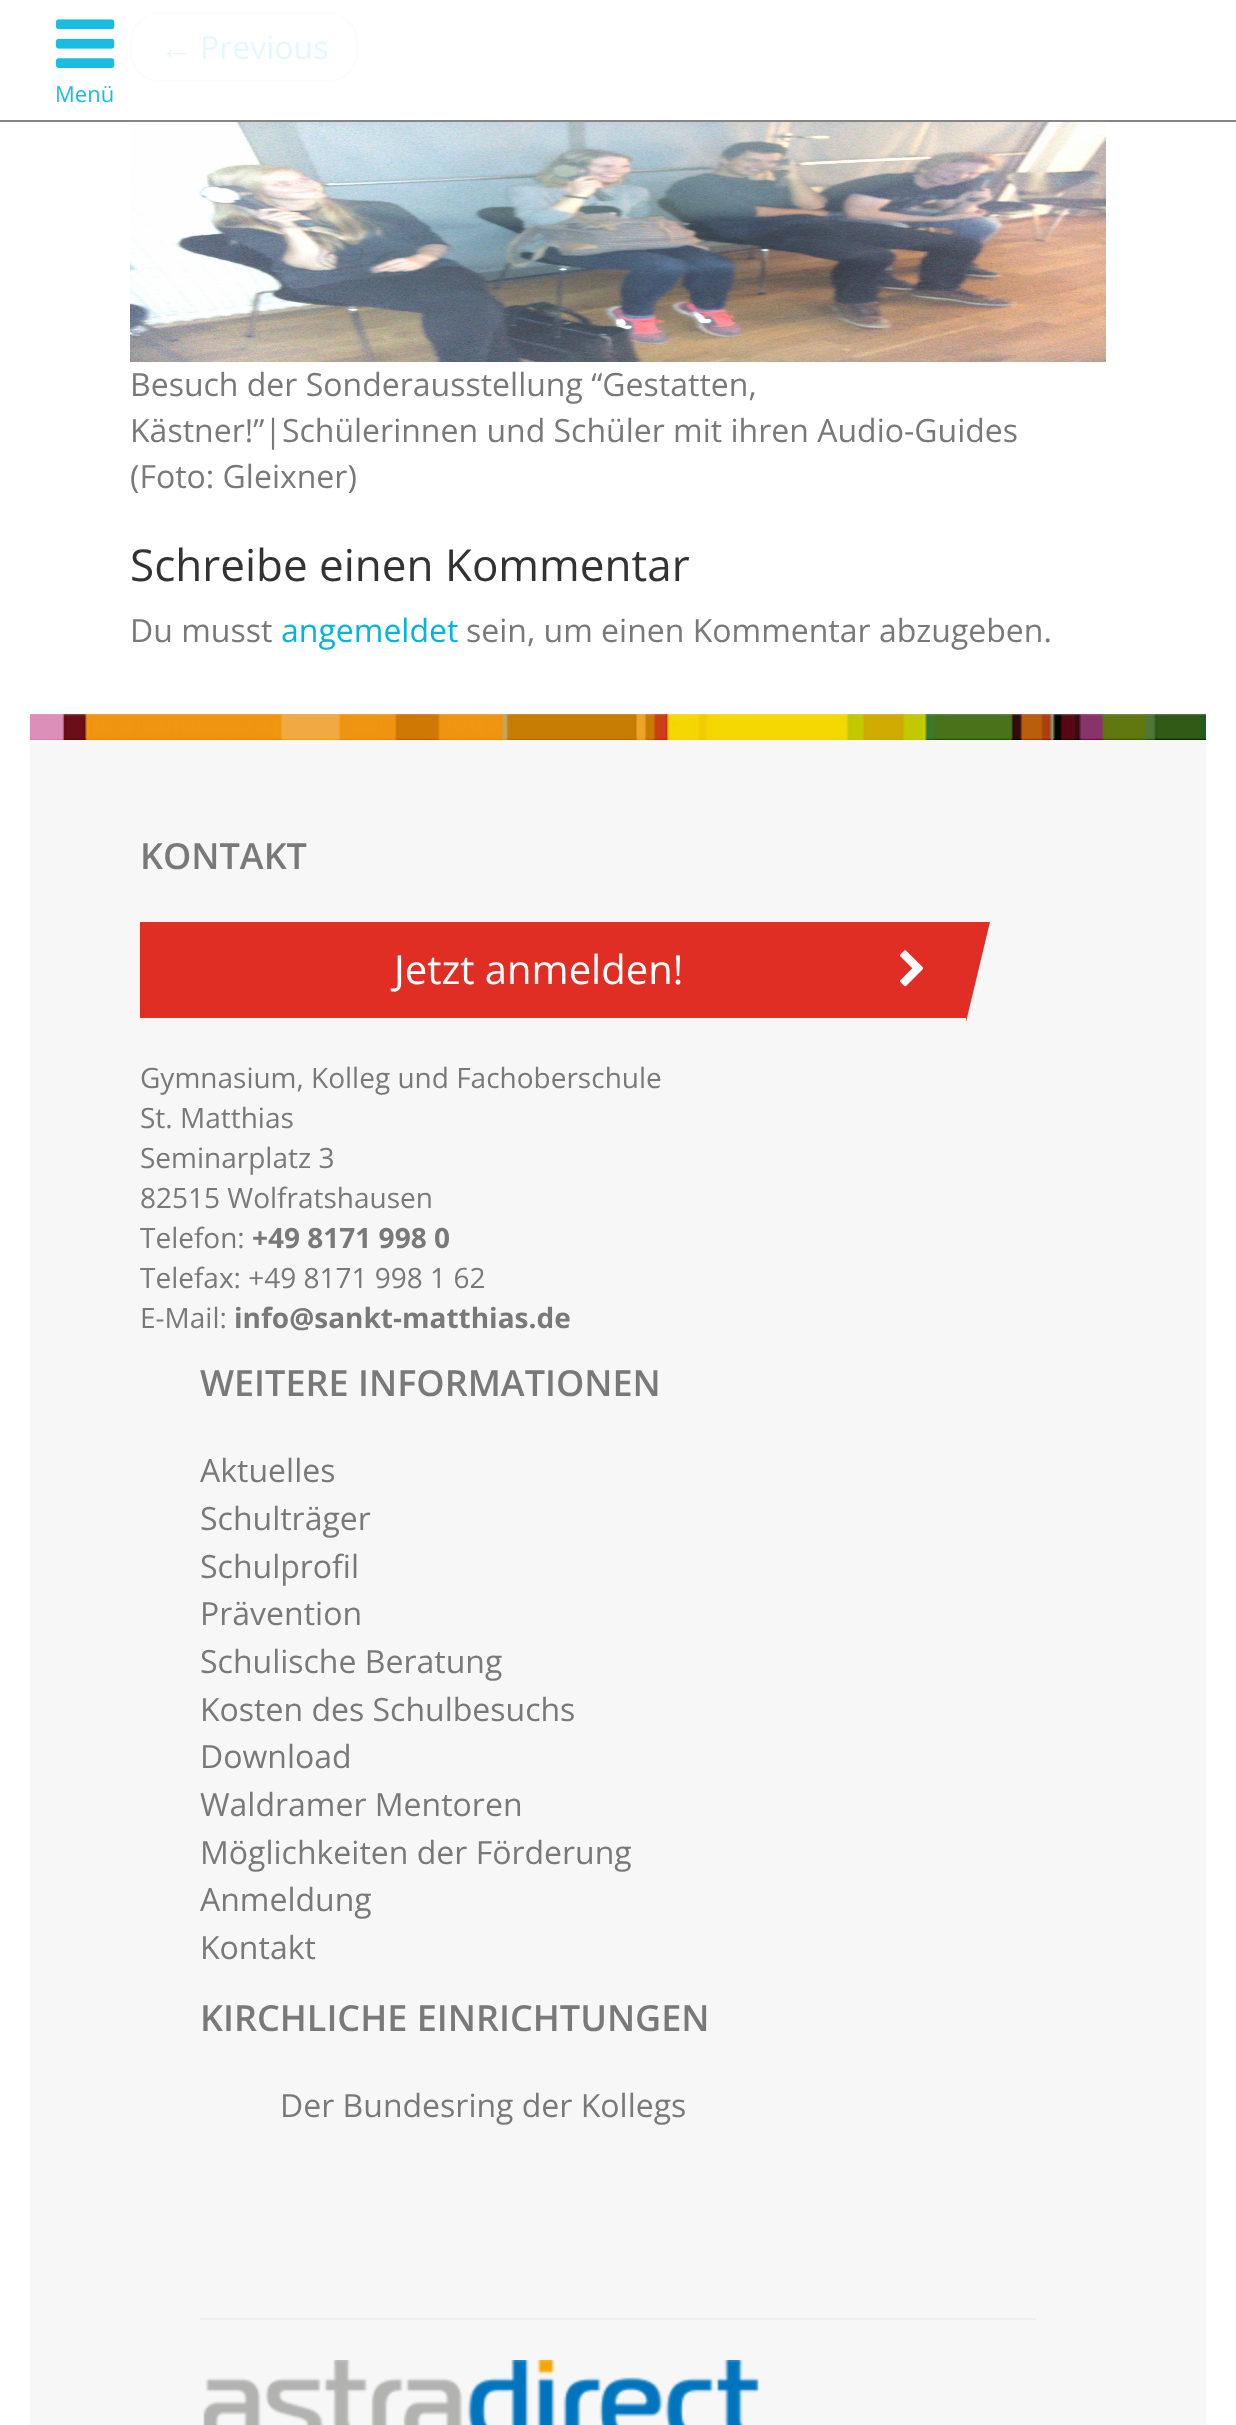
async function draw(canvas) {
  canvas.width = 1236
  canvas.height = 2425
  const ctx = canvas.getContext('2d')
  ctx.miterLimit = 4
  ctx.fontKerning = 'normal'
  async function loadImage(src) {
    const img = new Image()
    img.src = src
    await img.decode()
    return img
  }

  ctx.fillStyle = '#fff'
  ctx.fillRect(0, 0, 1236, 2425)
  ctx.fillStyle = '#868686'
  ctx.fillRect(0, 120, 1236, 2)
  ctx.drawImage(await loadImage('image0.png'), 56, 19, 59, 49)
  ctx.font = '22px Open Sans'
  ctx.fillStyle = '#1abde1'
  ctx.fillText('Menü', 55, 102)
  ctx.beginPath()
  ctx.roundRect(131, 13, 226, 68, 29)
  ctx.strokeStyle = '#fcfcfc'
  ctx.lineWidth = 2
  ctx.stroke()
  ctx.font = '32px Liberation Sans'
  ctx.fillStyle = '#e6f8fc'
  ctx.fillText('←', 160, 59)
  ctx.font = '32px Open Sans'
  ctx.fillText('Previous', 200, 59)
  ctx.drawImage(await loadImage('image1.png'), 130, 122, 976, 240)
  ctx.fillStyle = '#797979'
  ctx.fillText('Besuch der Sonderausstellung “Gestatten,', 130, 396)
  ctx.fillText('Kästner!”|Schülerinnen und Schüler mit ihren Audio-Guides', 130, 442)
  ctx.fillText('(Foto: Gleixner)', 130, 488)
  ctx.font = '44px Open Sans'
  ctx.fillStyle = '#333'
  ctx.fillText('Schreibe einen Kommentar', 130, 581)
  ctx.font = '32px Open Sans'
  ctx.fillStyle = '#797979'
  ctx.fillText('Du musst', 130, 642)
  ctx.fillStyle = '#00b6de'
  ctx.fillText('angemeldet', 281, 642)
  ctx.fillStyle = '#797979'
  ctx.fillText('sein, um einen Kommentar abzugeben.', 466, 642)
  ctx.fillStyle = '#f7f7f7'
  ctx.fillRect(30, 740, 1176, 1685)
  ctx.drawImage(await loadImage('image2.png'), 30, 714, 1176, 26)
  ctx.font = '600 36px Open Sans'
  ctx.fillStyle = '#797979'
  ctx.fillText('KONTAKT', 140, 869)
  ctx.fillStyle = '#e02e24'
  ctx.fillRect(140, 922, 826, 96)
  ctx.font = '40px Open Sans'
  ctx.fillStyle = '#fff'
  ctx.fillText('Jetzt anmelden!', 394, 984)
  ctx.drawImage(await loadImage('image3.png'), 900, 950, 24, 37)
  ctx.fillStyle = '#e02e24'
  ctx.beginPath()
  ctx.moveTo(966, 1022)
  ctx.lineTo(966, 922)
  ctx.lineTo(990, 922)
  ctx.closePath()
  ctx.fill()
  ctx.font = '28px Open Sans'
  ctx.fillStyle = '#797979'
  ctx.fillText('Gymnasium, Kolleg und Fachoberschule', 140, 1088)
  ctx.fillText('St. Matthias', 140, 1128)
  ctx.fillText('Seminarplatz 3', 140, 1168)
  ctx.fillText('82515 Wolfratshausen', 140, 1208)
  ctx.fillText('Telefon:', 140, 1248)
  ctx.font = 'bold 28px Open Sans'
  ctx.fillText('+49 8171 998 0', 252, 1248)
  ctx.font = '28px Open Sans'
  ctx.fillText('Telefax: +49 8171 998 1 62', 140, 1288)
  ctx.fillText('E-Mail:', 140, 1328)
  ctx.font = 'bold 28px Open Sans'
  ctx.fillText('info@sankt-matthias.de', 234, 1328)
  ctx.font = '600 36px Open Sans'
  ctx.fillText('WEITERE INFORMATIONEN', 200, 1396)
  ctx.font = '32px Open Sans'
  ctx.fillText('Aktuelles', 200, 1482)
  ctx.fillText('Schulträger', 200, 1530)
  ctx.fillText('Schulprofil', 200, 1578)
  ctx.fillText('Prävention', 200, 1625)
  ctx.fillText('Schulische Beratung', 200, 1673)
  ctx.fillText('Kosten des Schulbesuchs', 200, 1721)
  ctx.fillText('Download', 200, 1768)
  ctx.fillText('Waldramer Mentoren', 200, 1816)
  ctx.fillText('Möglichkeiten der Förderung', 200, 1864)
  ctx.fillText('Anmeldung', 200, 1911)
  ctx.fillText('Kontakt', 200, 1959)
  ctx.font = '600 36px Open Sans'
  ctx.fillText('KIRCHLICHE EINRICHTUNGEN', 200, 2031)
  ctx.font = '32px Open Sans'
  ctx.fillText('Der Bundesring der Kollegs', 280, 2117)
  ctx.fillStyle = '#eee'
  ctx.fillRect(200, 2318, 836, 2)
  ctx.drawImage(await loadImage('image4.png'), 203, 2360, 556, 65)
}

draw(document.querySelector('canvas'))
